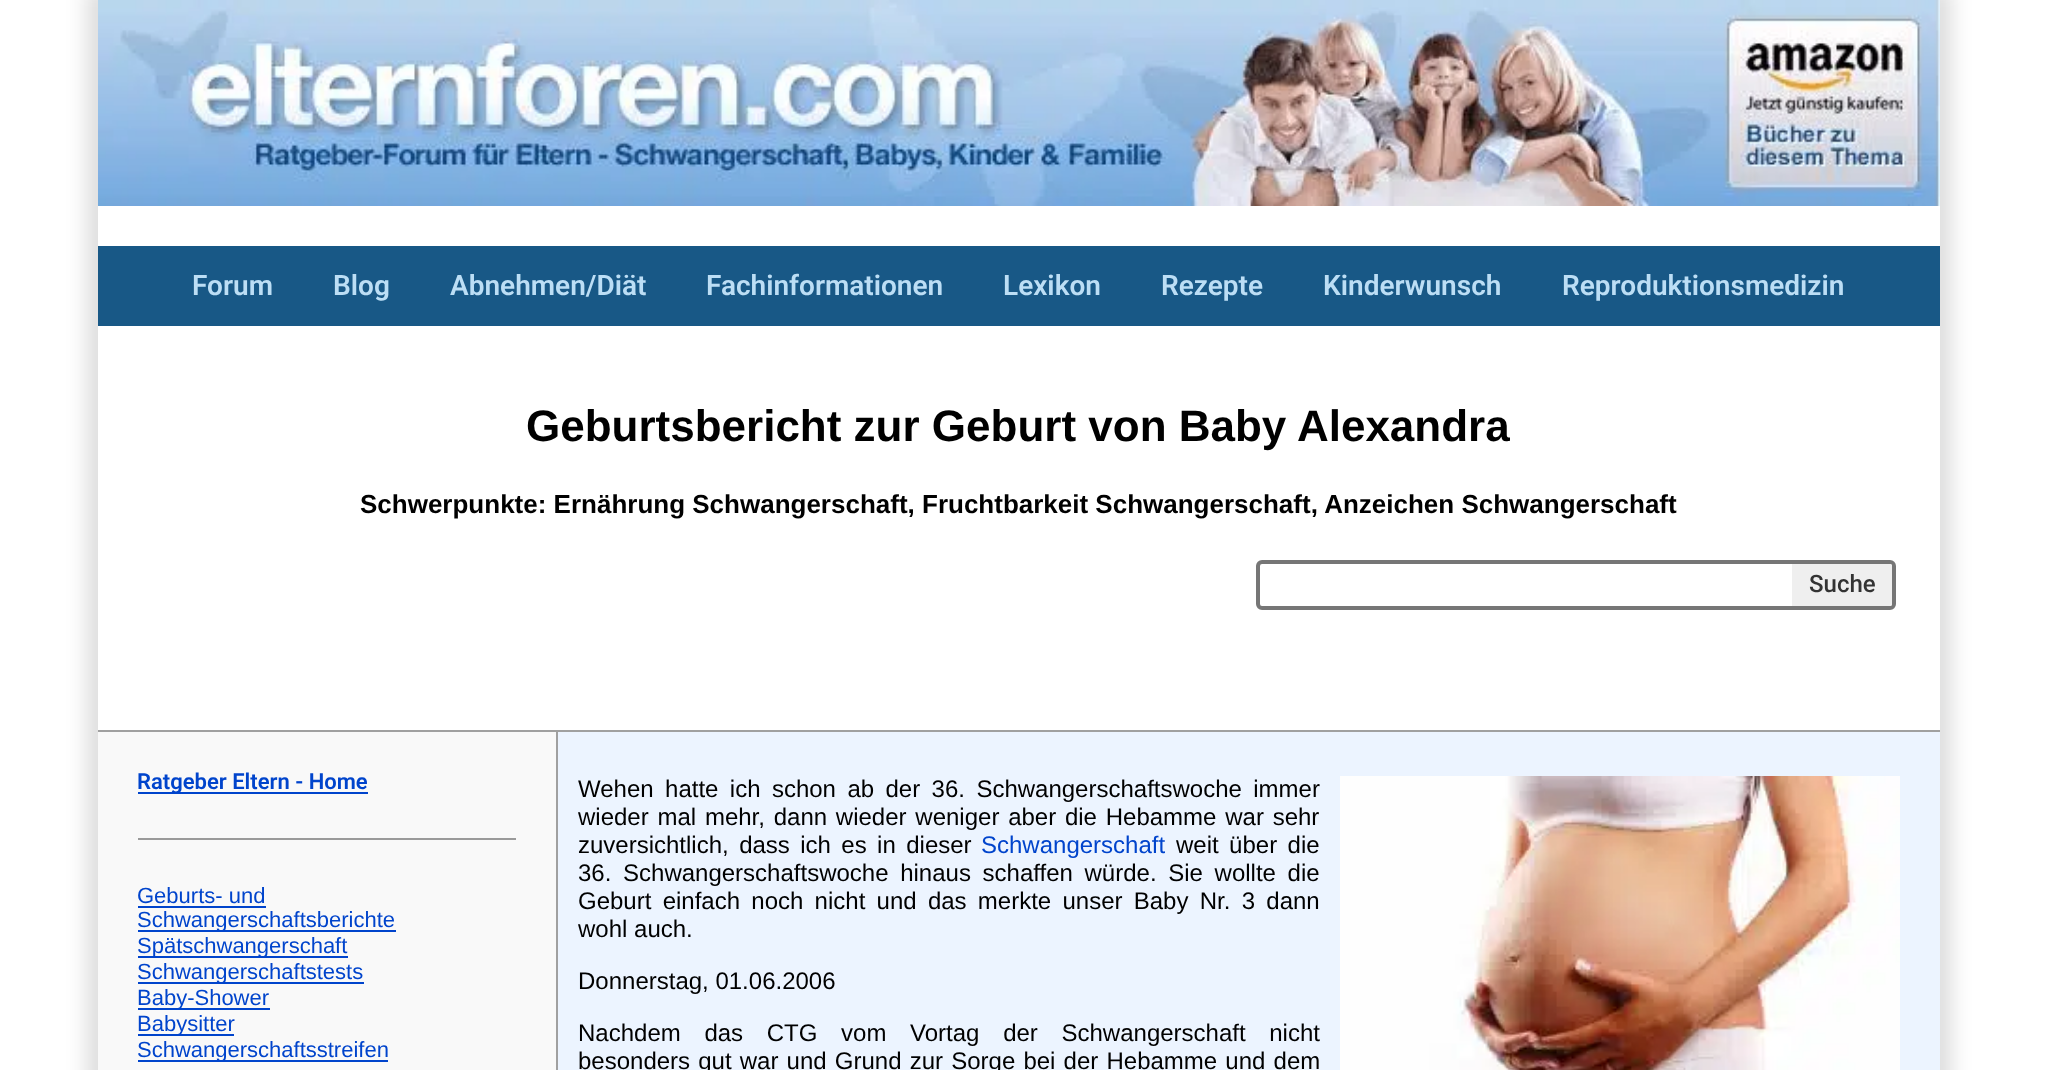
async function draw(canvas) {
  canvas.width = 2066
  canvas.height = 1070
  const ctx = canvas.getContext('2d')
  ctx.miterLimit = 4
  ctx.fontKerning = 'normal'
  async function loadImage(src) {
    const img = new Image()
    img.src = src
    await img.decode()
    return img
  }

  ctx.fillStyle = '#fff'
  ctx.fillRect(0, 0, 2066, 1070)
  ctx.save()
  ctx.beginPath()
  ctx.moveTo(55, 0)
  ctx.lineTo(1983, 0)
  ctx.lineTo(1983, 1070)
  ctx.lineTo(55, 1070)
  ctx.closePath()
  ctx.moveTo(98, 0)
  ctx.lineTo(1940, 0)
  ctx.lineTo(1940, 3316)
  ctx.lineTo(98, 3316)
  ctx.closePath()
  ctx.clip('evenodd')
  ctx.fillStyle = '#00000021'
  ctx.filter = 'blur(10px)'
  ctx.beginPath()
  ctx.rect(86, -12, 1866, 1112)
  ctx.fill()
  ctx.filter = 'none'
  ctx.restore()
  ctx.drawImage(await loadImage('image0.png'), 98, 0, 1842, 206)
  ctx.fillStyle = '#185886'
  ctx.fillRect(98, 246, 1842, 80)
  ctx.font = '600 28px Roboto'
  ctx.fillStyle = '#bcdef5'
  ctx.fillText('Forum', 192, 295)
  ctx.fillText('Blog', 333, 295)
  ctx.fillText('Abnehmen/Diät', 450, 295)
  ctx.fillText('Fachinformationen', 706, 295)
  ctx.fillText('Lexikon', 1003, 295)
  ctx.fillText('Rezepte', 1161, 295)
  ctx.fillText('Kinderwunsch', 1323, 295)
  ctx.fillText('Reproduktionsmedizin', 1562, 295)
  ctx.font = 'bold 44px Liberation Sans'
  ctx.fillStyle = '#000'
  ctx.fillText('Geburtsbericht zur Geburt von Baby Alexandra', 526, 441)
  ctx.font = 'bold 26px Liberation Sans'
  ctx.fillText('Schwerpunkte: Ernährung Schwangerschaft, Fruchtbarkeit Schwangerschaft, Anzeichen Schwangerschaft', 360, 513)
  ctx.beginPath()
  ctx.roundRect(1258, 562, 636, 46, 4)
  ctx.strokeStyle = '#767676'
  ctx.lineWidth = 4
  ctx.stroke()
  ctx.fillStyle = '#efefef'
  ctx.beginPath()
  ctx.roundRect(1792, 564, 100, 42, [0, 2, 2, 0])
  ctx.fill()
  ctx.font = '500 24px Roboto'
  ctx.fillStyle = '#333'
  ctx.fillText('Suche', 1809, 592)
  ctx.fillStyle = '#a0a0a0'
  ctx.fillRect(98, 730, 1842, 2)
  ctx.fillStyle = '#f9f9f9'
  ctx.fillRect(98, 732, 458, 338)
  ctx.fillStyle = '#a0a0a0'
  ctx.fillRect(556, 732, 2, 338)
  ctx.fillStyle = '#04c'
  ctx.fillRect(138, 792, 230, 2)
  ctx.font = '600 22px Roboto'
  ctx.fillText('Ratgeber Eltern - Home', 137, 789)
  ctx.fillStyle = '#9a9a9a'
  ctx.fillRect(138, 838, 378, 2)
  ctx.font = '22px Liberation Sans'
  ctx.fillStyle = '#04c'
  ctx.fillText('Geburts- und', 137, 903)
  ctx.fillRect(138, 906, 128, 2)
  ctx.fillRect(138, 930, 258, 2)
  ctx.fillText('Schwangerschaftsberichte', 137, 927)
  ctx.fillRect(138, 956, 210, 2)
  ctx.fillText('Spätschwangerschaft', 137, 953)
  ctx.fillRect(138, 982, 226, 2)
  ctx.fillText('Schwangerschaftstests', 137, 979)
  ctx.fillRect(138, 1008, 132, 2)
  ctx.fillText('Baby-Shower', 137, 1005)
  ctx.fillRect(138, 1034, 96, 2)
  ctx.fillText('Babysitter', 137, 1031)
  ctx.fillRect(138, 1060, 250, 2)
  ctx.fillText('Schwangerschaftsstreifen', 137, 1057)
  ctx.fillStyle = '#ecf4ff'
  ctx.fillRect(558, 732, 1382, 338)
  ctx.wordSpacing = '4.75px'
  ctx.font = '24px Liberation Sans'
  ctx.fillStyle = '#000'
  ctx.fillText('Wehen hatte ich schon ab der 36. Schwangerschaftswoche immer', 578, 797)
  ctx.drawImage(await loadImage('image1.png'), 1340, 776, 560, 294)
  ctx.wordSpacing = '2.1px'
  ctx.fillText('wieder mal mehr, dann wieder weniger aber die Hebamme war sehr', 578, 825)
  ctx.wordSpacing = '3.75px'
  ctx.fillText('zuversichtlich, dass ich es in dieser', 578, 853)
  ctx.wordSpacing = '0px'
  ctx.fillStyle = '#04c'
  ctx.fillText('Schwangerschaft', 981, 853)
  ctx.wordSpacing = '3.75px'
  ctx.fillStyle = '#000'
  ctx.fillText('weit über die', 1176, 853)
  ctx.wordSpacing = '5px'
  ctx.fillText('36. Schwangerschaftswoche hinaus schaffen würde. Sie wollte die', 578, 881)
  ctx.wordSpacing = '4.6px'
  ctx.fillText('Geburt einfach noch nicht und das merkte unser Baby Nr. 3 dann', 578, 909)
  ctx.wordSpacing = '0px'
  ctx.fillText('wohl auch.', 578, 937)
  ctx.fillText('Donnerstag, 01.06.2006', 578, 989)
  ctx.wordSpacing = '17px'
  ctx.fillText('Nachdem das CTG vom Vortag der Schwangerschaft nicht', 578, 1041)
  ctx.wordSpacing = '1.5px'
  ctx.fillText('besonders gut war und Grund zur Sorge bei der Hebamme und dem', 578, 1069)
}

draw(document.querySelector('canvas'))
